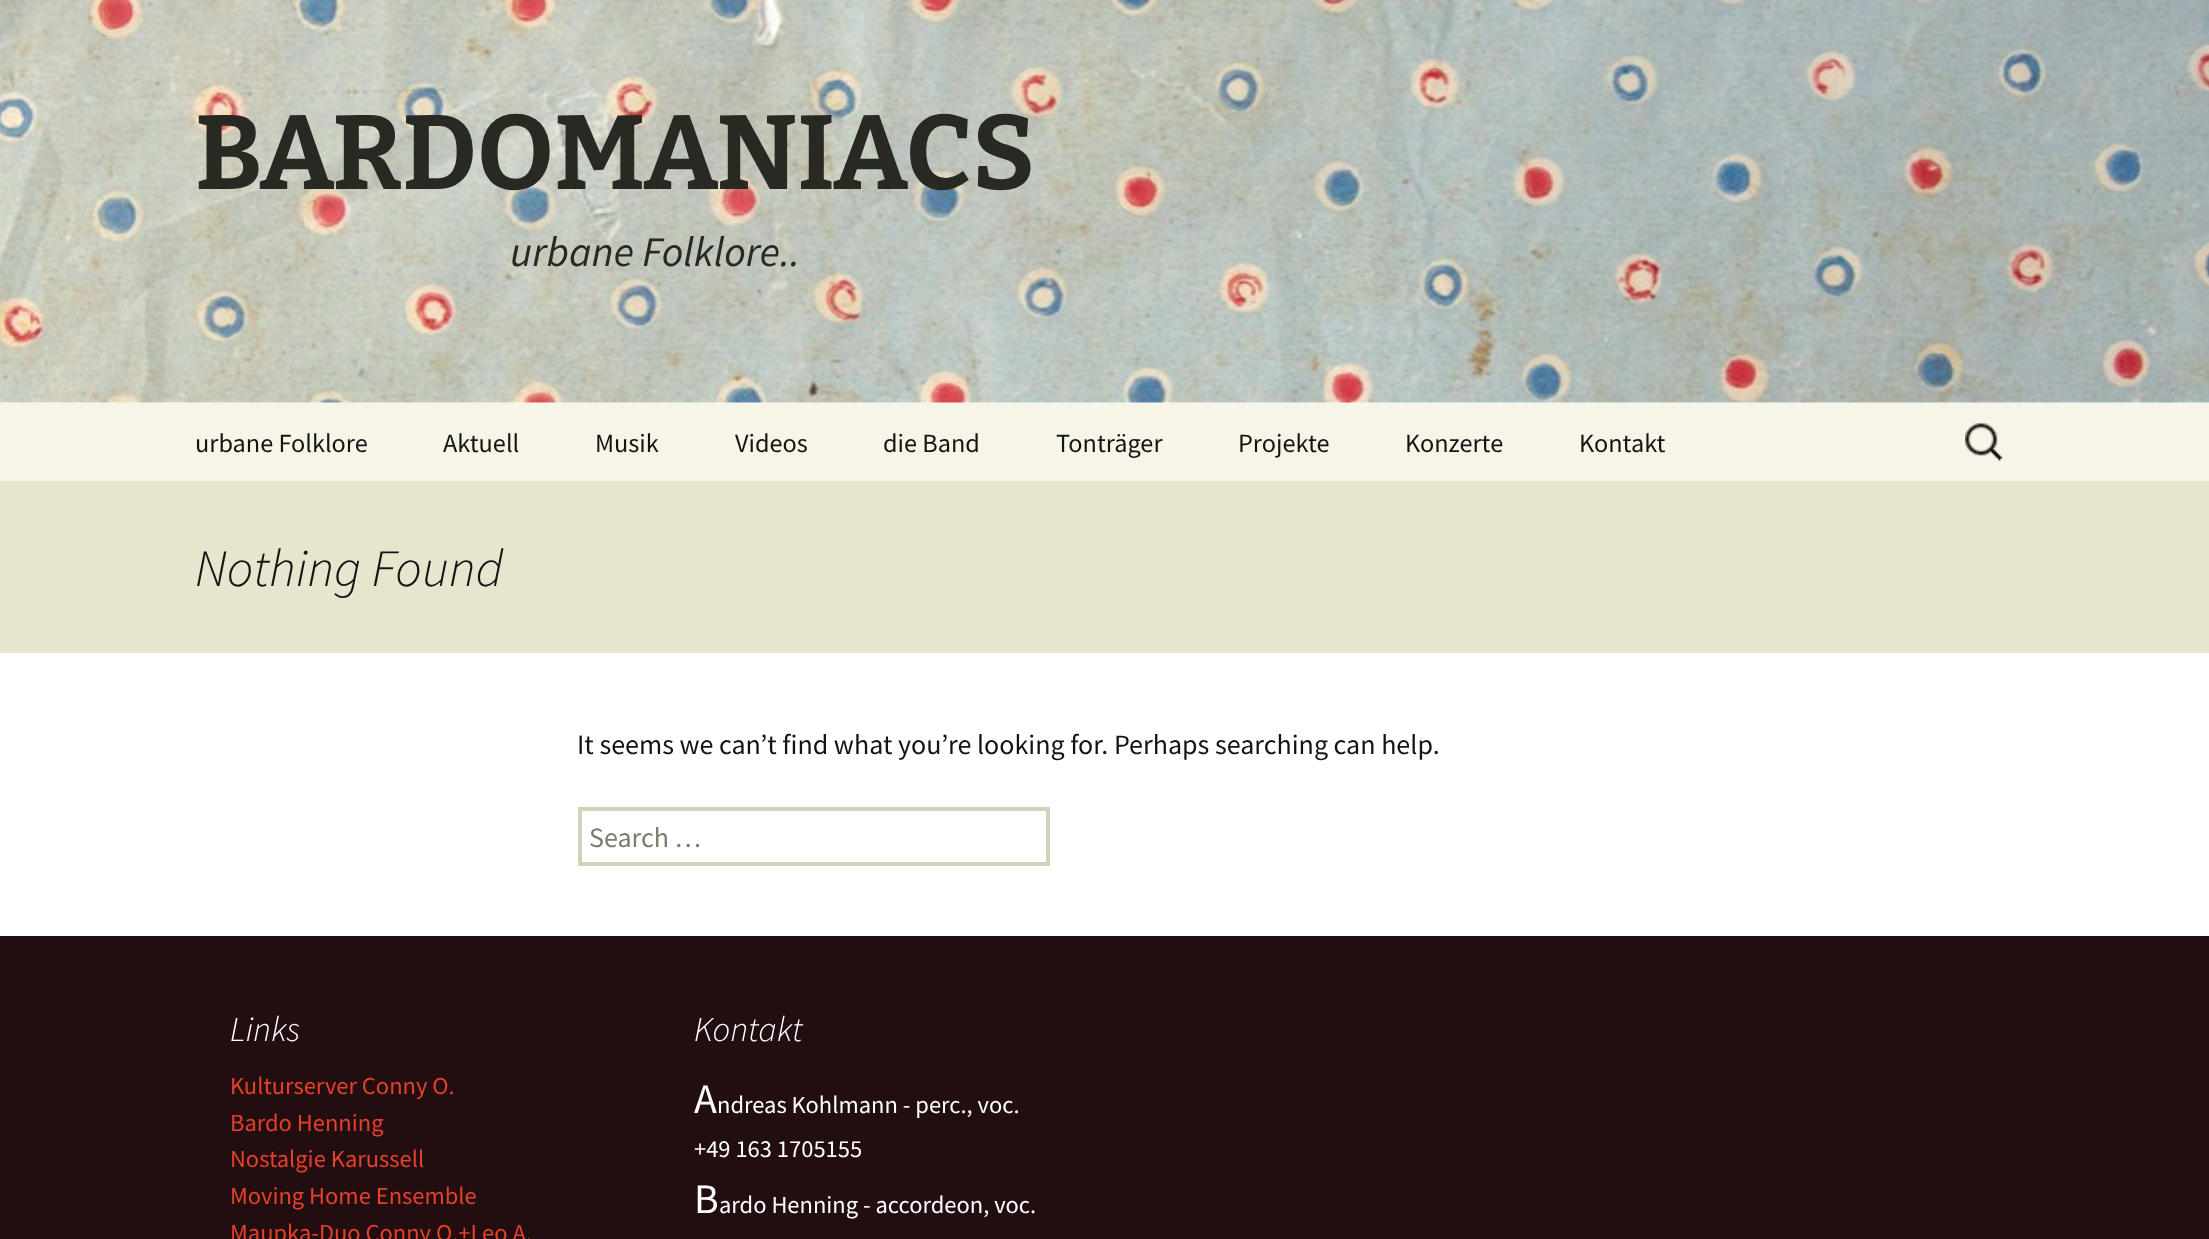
async function draw(canvas) {
  canvas.width = 2209
  canvas.height = 1239
  const ctx = canvas.getContext('2d')
  ctx.miterLimit = 4
  ctx.fontKerning = 'normal'
  async function loadImage(src) {
    const img = new Image()
    img.src = src
    await img.decode()
    return img
  }

  ctx.fillStyle = '#fff'
  ctx.fillRect(0, 0, 2209, 1239)
  ctx.drawImage(await loadImage('image0.png'), 0, 0, 2209, 403)
  ctx.font = 'bold 105px Bitter'
  ctx.fillStyle = '#292923'
  ctx.fillText('BARDOMANIACS', 195, 189)
  ctx.font = 'italic 42px Source Sans Pro'
  ctx.fillText('urbane Folklore..', 510, 266)
  ctx.fillStyle = '#f7f5e7'
  ctx.fillRect(0, 403, 2209, 78)
  ctx.font = '26.25px Source Sans Pro'
  ctx.fillStyle = '#141412'
  ctx.fillText('urbane Folklore', 195, 452)
  ctx.fillText('Aktuell', 443, 452)
  ctx.fillText('Musik', 595, 452)
  ctx.fillText('Videos', 735, 452)
  ctx.fillText('die Band', 883, 452)
  ctx.fillText('Tonträger', 1056, 452)
  ctx.fillText('Projekte', 1238, 452)
  ctx.fillText('Konzerte', 1405, 452)
  ctx.fillText('Kontakt', 1579, 452)
  ctx.drawImage(await loadImage('image1.png'), 1965, 423, 38, 38)
  ctx.fillStyle = '#e8e5ce'
  ctx.fillRect(0, 481, 2209, 172)
  ctx.font = 'italic 300 52.5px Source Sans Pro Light'
  ctx.fillStyle = '#141412'
  ctx.fillText('Nothing Found', 195, 586)
  ctx.font = '28px Source Sans Pro'
  ctx.fillText('It seems we can’t find what you’re looking for. Perhaps searching can help.', 577, 754)
  ctx.strokeStyle = '#d4d0ba'
  ctx.lineWidth = 4
  ctx.strokeRect(580, 809, 468, 55)
  ctx.fillStyle = '#7d7b6d'
  ctx.fillText('Search …', 589, 847)
  ctx.fillStyle = '#220e10'
  ctx.fillRect(0, 936, 2209, 303)
  ctx.font = 'italic 300 35px Source Sans Pro Light'
  ctx.fillStyle = '#fff'
  ctx.fillText('Links', 230, 1041)
  ctx.font = '24.5px Source Sans Pro'
  ctx.fillStyle = '#e6402a'
  ctx.fillText('Kulturserver Conny O.', 230, 1094)
  ctx.fillText('Bardo Henning', 230, 1131)
  ctx.fillText('Nostalgie Karussell', 230, 1167)
  ctx.fillText('Moving Home Ensemble', 230, 1204)
  ctx.fillText('Maupka-Duo Conny O.+Leo A.', 230, 1241)
  ctx.font = 'italic 300 35px Source Sans Pro Light'
  ctx.fillStyle = '#fff'
  ctx.fillText('Kontakt', 694, 1041)
  ctx.font = '42px Source Sans Pro'
  ctx.fillText('A', 694, 1113)
  ctx.font = '24.5px Source Sans Pro'
  ctx.fillText('ndreas Kohlmann - perc., voc.', 717, 1113)
  ctx.fillText('+49 163 1705155', 694, 1157)
  ctx.font = '42px Source Sans Pro'
  ctx.fillText('B', 694, 1213)
  ctx.font = '24.5px Source Sans Pro'
  ctx.fillText('ardo Henning - accordeon, voc.', 719, 1213)
}

draw(document.querySelector('canvas'))
